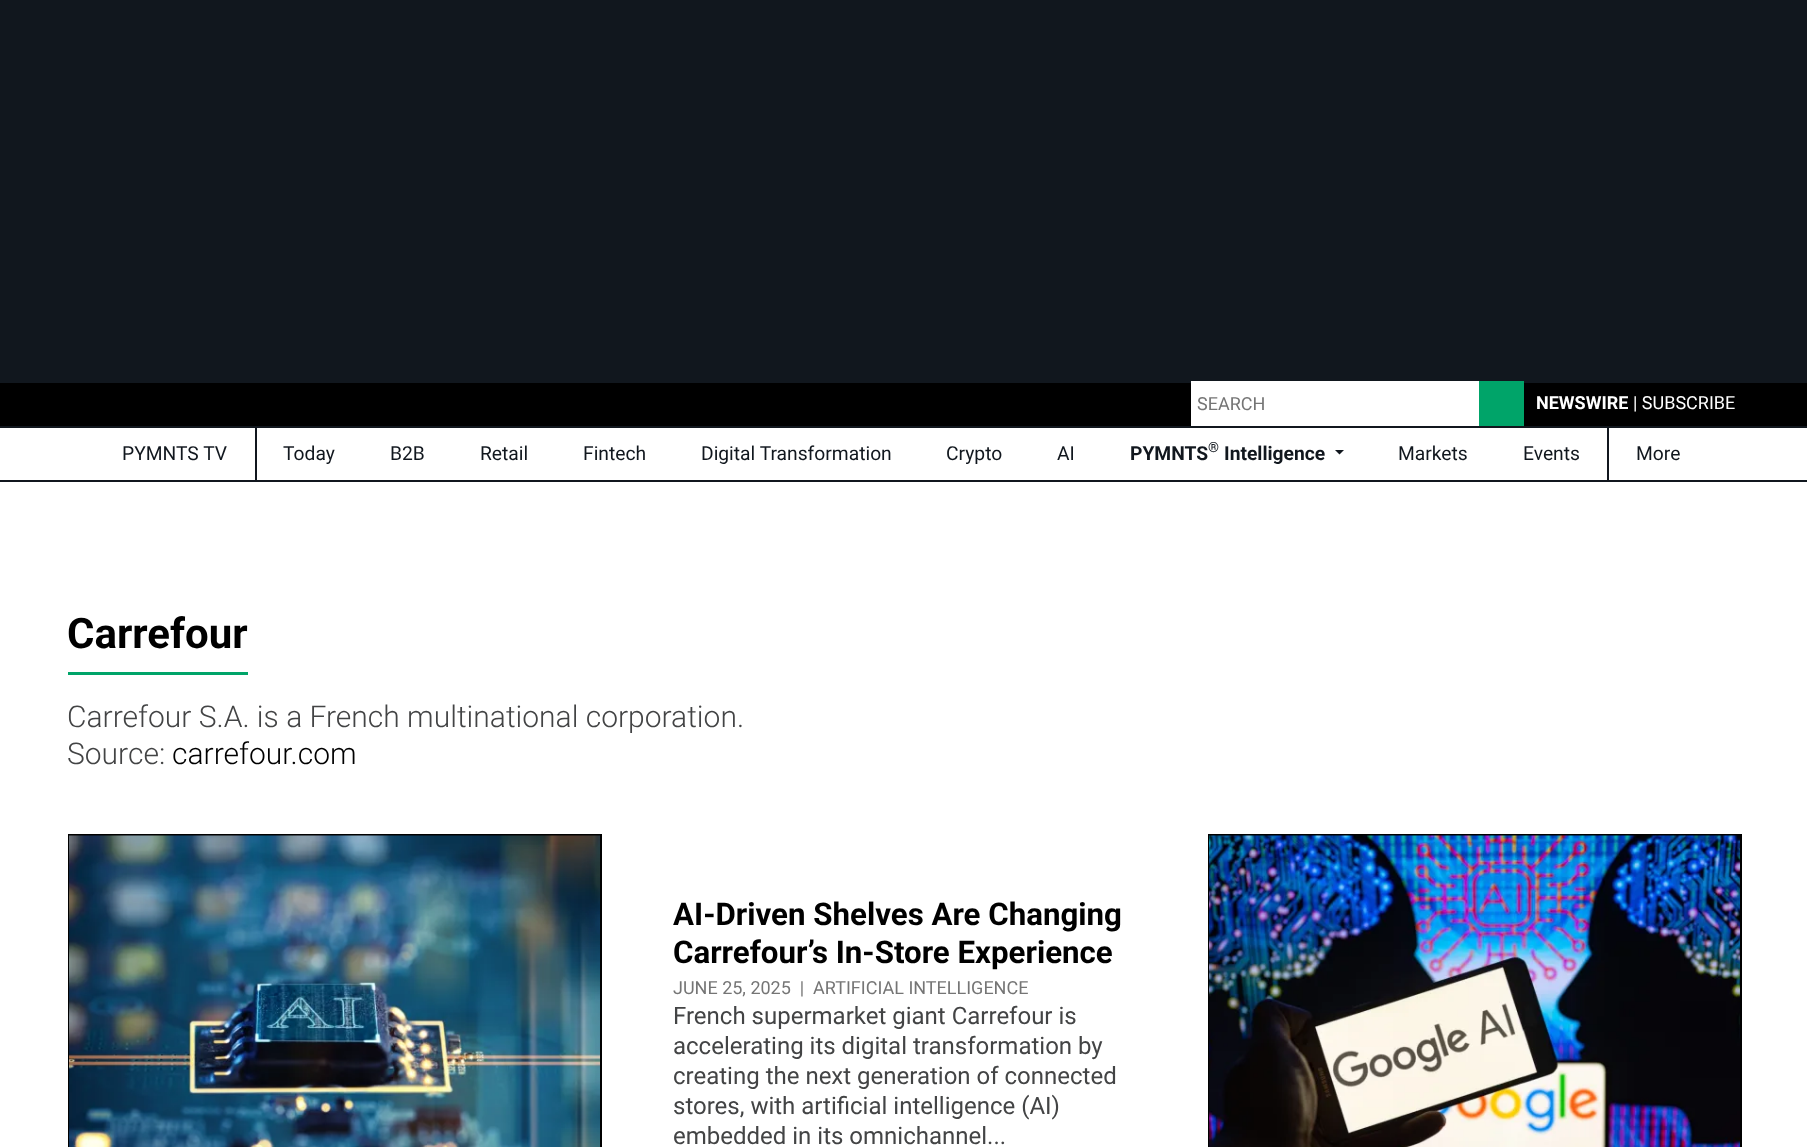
async function draw(canvas) {
  canvas.width = 1807
  canvas.height = 1147
  const ctx = canvas.getContext('2d')
  ctx.miterLimit = 4
  ctx.fontKerning = 'normal'
  async function loadImage(src) {
    const img = new Image()
    img.src = src
    await img.decode()
    return img
  }

  ctx.fillStyle = '#fff'
  ctx.fillRect(0, 0, 1807, 1147)
  ctx.fillStyle = '#11171e'
  ctx.fillRect(0, 0, 1807, 383)
  ctx.fillStyle = '#000'
  ctx.fillRect(0, 383, 1807, 43)
  ctx.fillStyle = '#fff'
  ctx.fillRect(1191, 381, 288, 45)
  ctx.font = '18px Roboto'
  ctx.fillStyle = '#757575'
  ctx.fillText('SEARCH', 1197, 410)
  ctx.fillStyle = '#00a469'
  ctx.fillRect(1479, 381, 45, 45)
  ctx.font = 'bold 18px Roboto'
  ctx.fillStyle = '#fff'
  ctx.fillText('NEWSWIRE', 1536, 409)
  ctx.font = '18px Roboto'
  ctx.fillText('| SUBSCRIBE', 1633, 409)
  ctx.fillStyle = '#11171e'
  ctx.fillRect(0, 426, 1807, 2)
  ctx.fillRect(0, 480, 1807, 2)
  ctx.fillRect(255, 428, 2, 52)
  ctx.font = '19.25px Roboto'
  ctx.fillText('PYMNTS TV', 122, 460)
  ctx.fillText('Today', 283, 460)
  ctx.fillText('B2B', 390, 460)
  ctx.fillText('Retail', 480, 460)
  ctx.fillText('Fintech', 583, 460)
  ctx.fillText('Digital Transformation', 701, 460)
  ctx.fillText('Crypto', 946, 460)
  ctx.fillText('AI', 1057, 460)
  ctx.font = 'bold 19.25px Roboto'
  ctx.fillText('PYMNTS', 1130, 460)
  ctx.font = 'bold 14px Roboto'
  ctx.fillText('®', 1208, 452)
  ctx.font = 'bold 19.25px Roboto'
  ctx.fillText('Intelligence', 1224, 460)
  ctx.beginPath()
  ctx.moveTo(1335, 450)
  ctx.lineTo(1344, 450)
  ctx.lineTo(1339.5, 454.5)
  ctx.closePath()
  ctx.fill()
  ctx.font = '19.25px Roboto'
  ctx.fillText('Markets', 1398, 460)
  ctx.fillText('Events', 1523, 460)
  ctx.fillRect(1607, 428, 2, 52)
  ctx.fillText('More', 1636, 460)
  ctx.font = 'bold 42px Roboto'
  ctx.fillStyle = '#000'
  ctx.fillText('Carrefour', 67, 648)
  ctx.fillStyle = '#00a469'
  ctx.fillRect(68, 672, 180, 3)
  ctx.font = '300 30px Roboto'
  ctx.fillStyle = '#434445'
  ctx.fillText('Carrefour S.A. is a French multinational corporation.', 67, 727)
  ctx.fillText('Source:', 67, 764)
  ctx.fillStyle = '#000'
  ctx.fillText('carrefour.com', 172, 764)
  ctx.strokeStyle = '#000'
  ctx.lineWidth = 2
  ctx.strokeRect(69, 835, 532, 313)
  ctx.drawImage(await loadImage('image0.png'), 69, 835, 531, 312)
  ctx.font = 'bold 31.25px Roboto'
  ctx.fillText('AI-Driven Shelves Are Changing', 673, 925)
  ctx.fillText('Carrefour’s In-Store Experience', 673, 963)
  ctx.font = '18px Roboto'
  ctx.fillStyle = '#757575'
  ctx.fillText('JUNE 25, 2025  |  ARTIFICIAL INTELLIGENCE', 673, 994)
  ctx.font = '24px Roboto'
  ctx.fillStyle = '#434445'
  ctx.fillText('French supermarket giant Carrefour is', 673, 1024)
  ctx.fillText('accelerating its digital transformation by', 673, 1054)
  ctx.fillText('creating the next generation of connected', 673, 1084)
  ctx.fillText('stores, with artificial intelligence (AI)', 673, 1114)
  ctx.fillText('embedded in its omnichannel...', 673, 1144)
  ctx.strokeRect(1209, 835, 532, 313)
  ctx.drawImage(await loadImage('image1.png'), 1209, 835, 531, 312)
}

draw(document.querySelector('canvas'))
